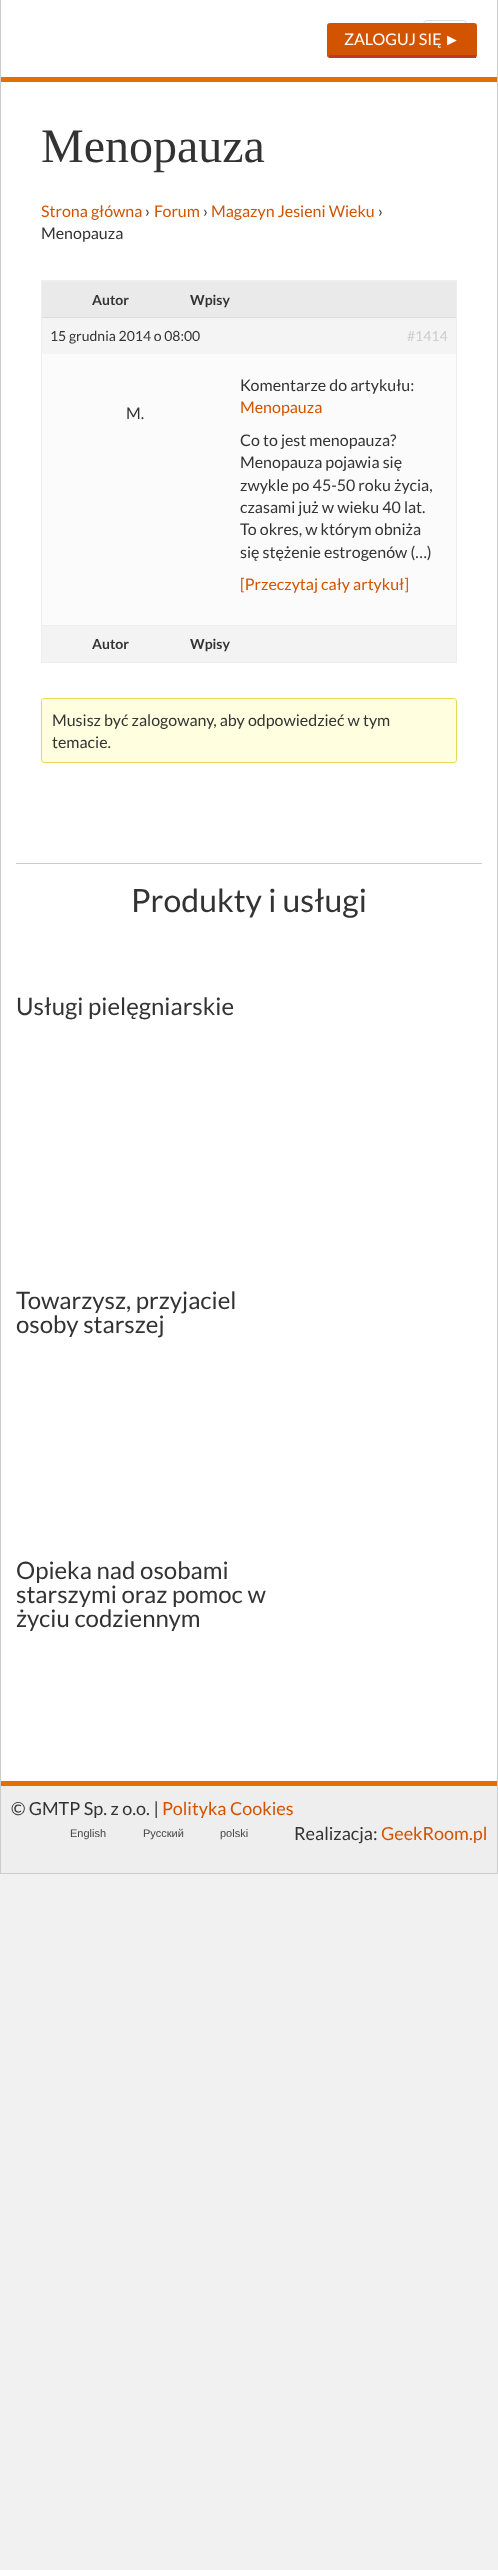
async function draw(canvas) {
  canvas.width = 498
  canvas.height = 2570
  const ctx = canvas.getContext('2d')
  ctx.miterLimit = 4
  ctx.fontKerning = 'normal'

  ctx.fillStyle = '#f1f1f1'
  ctx.fillRect(0, 0, 498, 2570)
  ctx.fillStyle = '#fff'
  ctx.fillRect(1, 0, 496, 1781)
  ctx.fillStyle = '#ccc'
  ctx.fillRect(497, 0, 1, 1874)
  ctx.fillRect(0, 1873, 498, 1)
  ctx.fillRect(0, 0, 1, 1874)
  ctx.fillStyle = '#e27000'
  ctx.fillRect(1, 77, 496, 5)
  ctx.beginPath()
  ctx.roundRect(423.5, 20.5, 43, 33, 3.5)
  ctx.strokeStyle = '#ddd'
  ctx.stroke()
  ctx.fillStyle = '#d35400'
  ctx.beginPath()
  ctx.roundRect(327, 23, 150, 35, 3)
  ctx.fill()
  ctx.fillStyle = '#bf382a'
  ctx.fillRect(329, 55, 147, 3)
  ctx.font = '16px Lato'
  ctx.fillStyle = '#fff'
  ctx.fillText('ZALOGUJ SIĘ', 344, 45)
  ctx.font = '16px Liberation Sans'
  ctx.fillText('►', 444, 45)
  ctx.font = '48px Liberation Serif'
  ctx.fillStyle = '#333'
  ctx.fillText('Menopauza', 41, 162)
  ctx.font = '16px Lato'
  ctx.fillStyle = '#d35400'
  ctx.fillText('Strona główna', 41, 217)
  ctx.fillStyle = '#333'
  ctx.fillText('›', 145, 217)
  ctx.fillStyle = '#d35400'
  ctx.fillText('Forum', 154, 217)
  ctx.fillStyle = '#333'
  ctx.fillText('›', 203, 217)
  ctx.fillStyle = '#d35400'
  ctx.fillText('Magazyn Jesieni Wieku', 211, 217)
  ctx.fillStyle = '#333'
  ctx.fillText('›', 378, 217)
  ctx.fillText('Menopauza', 41, 239)
  ctx.strokeStyle = '#eee'
  ctx.strokeRect(41.5, 280.5, 415, 382)
  ctx.fillStyle = '#eaeaea'
  ctx.fillRect(42, 282, 414, 35)
  ctx.fillStyle = '#eee'
  ctx.fillRect(42, 281, 414, 1)
  ctx.font = 'bold 14px Lato'
  ctx.fillStyle = '#333'
  ctx.fillText('Autor', 92, 305)
  ctx.fillText('Wpisy', 190, 305)
  ctx.fillStyle = '#f4f4f4'
  ctx.fillRect(42, 318, 414, 36)
  ctx.fillStyle = '#ddd'
  ctx.fillRect(42, 317, 414, 1)
  ctx.font = '14px Lato'
  ctx.fillStyle = '#333'
  ctx.fillText('15 grudnia 2014 o 08:00', 50, 341)
  ctx.fillStyle = '#ccc'
  ctx.fillText('#1414', 407, 341)
  ctx.fillStyle = '#fbfbfb'
  ctx.fillRect(42, 354, 414, 271)
  ctx.font = '16px Lato'
  ctx.fillStyle = '#333'
  ctx.fillText('M.', 126, 419)
  ctx.fillText('Komentarze do artykułu:', 240, 391)
  ctx.fillStyle = '#d35400'
  ctx.fillText('Menopauza', 240, 413)
  ctx.fillStyle = '#333'
  ctx.fillText('Co to jest menopauza?', 240, 446)
  ctx.fillText('Menopauza pojawia się', 240, 468)
  ctx.fillText('zwykle po 45-50 roku życia,', 240, 491)
  ctx.fillText('czasami już w wieku 40 lat.', 240, 513)
  ctx.fillText('To okres, w którym obniża', 240, 535)
  ctx.fillText('się stężenie estrogenów (…)', 240, 558)
  ctx.fillStyle = '#d35400'
  ctx.fillText('[Przeczytaj cały artykuł]', 240, 590)
  ctx.fillStyle = '#f3f3f3'
  ctx.fillRect(42, 626, 414, 36)
  ctx.fillStyle = '#eee'
  ctx.fillRect(42, 625, 414, 1)
  ctx.font = 'bold 14px Lato'
  ctx.fillStyle = '#333'
  ctx.fillText('Autor', 92, 649)
  ctx.fillText('Wpisy', 190, 649)
  ctx.fillStyle = '#ffffe0'
  ctx.beginPath()
  ctx.roundRect(41.5, 698.5, 415, 64, 2.5)
  ctx.fill()
  ctx.strokeStyle = '#e6db55'
  ctx.stroke()
  ctx.font = '16px Lato'
  ctx.fillStyle = '#333'
  ctx.fillText('Musisz być zalogowany, aby odpowiedzieć w tym', 52, 726)
  ctx.fillText('temacie.', 52, 748)
  ctx.fillStyle = '#ccc'
  ctx.fillRect(16, 863, 466, 1)
  ctx.font = '32px Lato'
  ctx.fillStyle = '#333'
  ctx.fillText('Produkty i usługi', 131, 912)
  ctx.font = '24px Lato'
  ctx.fillText('Usługi pielęgniarskie', 16, 1015)
  ctx.fillText('Towarzysz, przyjaciel', 16, 1309)
  ctx.fillText('osoby starszej', 16, 1333)
  ctx.fillText('Opieka nad osobami', 16, 1579)
  ctx.fillText('starszymi oraz pomoc w', 16, 1603)
  ctx.fillText('życiu codziennym', 16, 1627)
  ctx.fillStyle = '#eee'
  ctx.fillRect(1, 1786, 496, 87)
  ctx.fillStyle = '#e27000'
  ctx.fillRect(1, 1781, 496, 5)
  ctx.font = '18px Lato'
  ctx.fillStyle = '#333'
  ctx.fillText('© GMTP Sp. z o.o. |', 11, 1815)
  ctx.fillStyle = '#d35400'
  ctx.fillText('Polityka Cookies', 162, 1815)
  ctx.font = '11px Liberation Sans'
  ctx.fillStyle = '#444'
  ctx.fillText('English', 70, 1837)
  ctx.fillText('Русский', 143, 1837)
  ctx.fillText('polski', 220, 1837)
  ctx.font = '18px Lato'
  ctx.fillStyle = '#333'
  ctx.fillText('Realizacja:', 294, 1840)
  ctx.fillStyle = '#d35400'
  ctx.fillText('GeekRoom.pl', 381, 1840)
}

draw(document.querySelector('canvas'))
